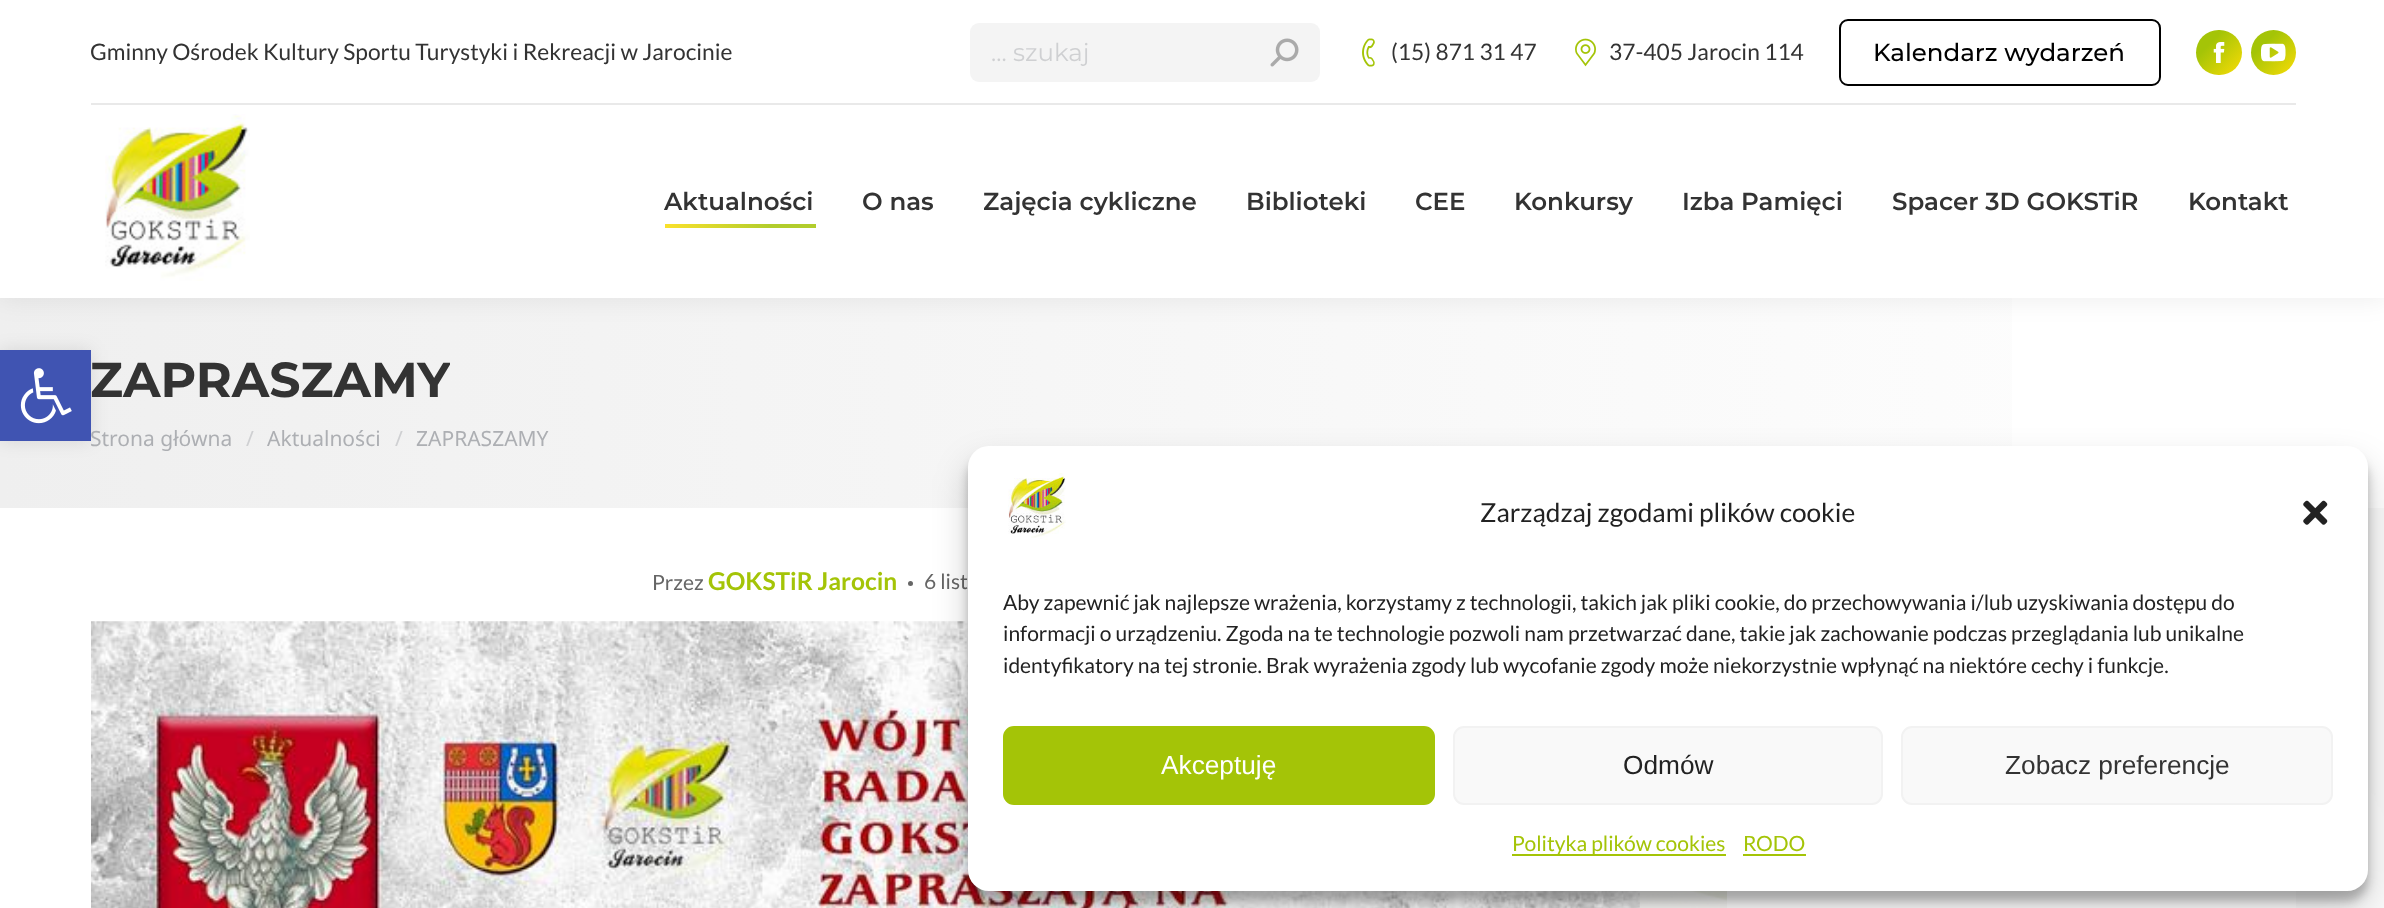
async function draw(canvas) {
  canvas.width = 2384
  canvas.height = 908
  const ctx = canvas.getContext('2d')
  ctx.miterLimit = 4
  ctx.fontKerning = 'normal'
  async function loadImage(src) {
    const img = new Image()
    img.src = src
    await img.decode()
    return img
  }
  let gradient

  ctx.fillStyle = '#fff'
  ctx.fillRect(0, 0, 2384, 908)
  gradient = ctx.createLinearGradient(0, 403, 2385, 402)
  gradient.addColorStop(0, '#efefef')
  gradient.addColorStop(1, '#fff')
  ctx.fillStyle = gradient
  ctx.fillRect(0, 298, 2012, 210)
  ctx.fillStyle = '#0000001a'
  ctx.filter = 'blur(9px)'
  ctx.beginPath()
  ctx.rect(0, 350, 91, 91)
  ctx.fill()
  ctx.filter = 'none'
  ctx.fillStyle = '#4054b2'
  ctx.fillRect(0, 350, 91, 91)
  ctx.drawImage(await loadImage('image0.png'), 20, 368, 52, 56)
  ctx.fillStyle = '#00000012'
  ctx.filter = 'blur(13px)'
  ctx.beginPath()
  ctx.rect(-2, -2, 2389, 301)
  ctx.fill()
  ctx.filter = 'none'
  ctx.fillStyle = '#fff'
  ctx.fillRect(0, 0, 2384, 298)
  ctx.font = '22.75px Lato'
  ctx.fillStyle = '#333'
  ctx.fillText('Gminny Ośrodek Kultury Sportu Turystyki i Rekreacji w Jarocinie', 90, 60)
  ctx.fillStyle = '#f4f4f4'
  ctx.beginPath()
  ctx.roundRect(970, 23, 350, 59, 9)
  ctx.fill()
  ctx.font = '24.5px Montserrat'
  ctx.fillStyle = '#cfd0d2'
  ctx.fillText('... szukaj', 991, 61)
  ctx.drawImage(await loadImage('image1.png'), 1270, 38, 29, 29)
  ctx.drawImage(await loadImage('image2.png'), 1362, 38, 13, 29)
  ctx.font = '22.75px Lato'
  ctx.fillStyle = '#333'
  ctx.fillText('(15) 871 31 47', 1391, 60)
  ctx.drawImage(await loadImage('image3.png'), 1575, 38, 21, 29)
  ctx.fillText('37-405 Jarocin 114', 1609, 60)
  ctx.beginPath()
  ctx.roundRect(1840, 20, 320, 65, 8)
  ctx.strokeStyle = '#000'
  ctx.lineWidth = 2
  ctx.stroke()
  ctx.font = '500 24.5px Montserrat'
  ctx.fillStyle = '#000'
  ctx.fillText('Kalendarz wydarzeń', 1873, 61)
  gradient = ctx.createLinearGradient(2196, 30, 2242, 75)
  gradient.addColorStop(0.3, '#a4c407')
  gradient.addColorStop(1, '#f9dc06')
  ctx.fillStyle = gradient
  ctx.beginPath()
  ctx.roundRect(2196, 30, 46, 45, 22.5)
  ctx.fill()
  ctx.drawImage(await loadImage('image4.png'), 2213, 42, 12, 21)
  gradient = ctx.createLinearGradient(2251, 30, 2296, 75)
  gradient.addColorStop(0.3, '#a4c407')
  gradient.addColorStop(1, '#f9dc06')
  ctx.fillStyle = gradient
  ctx.beginPath()
  ctx.arc(2273.5, 52.5, 22.5, 0, 2 * Math.PI)
  ctx.fill()
  ctx.drawImage(await loadImage('image5.png'), 2261, 43, 25, 19)
  ctx.fillStyle = '#e9e9e9'
  ctx.fillRect(91, 103, 2205, 2)
  ctx.drawImage(await loadImage('image6.png'), 105, 114, 145, 167)
  ctx.font = '600 24.5px Montserrat'
  ctx.fillStyle = '#333'
  ctx.fillText('Aktualności', 664, 210)
  gradient = ctx.createLinearGradient(816, 226, 665, 226)
  gradient.addColorStop(0.3, '#b2cd2c')
  gradient.addColorStop(1, '#fae12b')
  ctx.fillStyle = gradient
  ctx.fillRect(665, 224, 151, 4)
  ctx.fillStyle = '#333'
  ctx.fillText('O nas', 862, 210)
  ctx.fillText('Zajęcia cykliczne', 983, 210)
  ctx.fillText('Biblioteki', 1246, 210)
  ctx.fillText('CEE', 1415, 210)
  ctx.fillText('Konkursy', 1514, 210)
  ctx.fillText('Izba Pamięci', 1682, 210)
  ctx.fillText('Spacer 3D GOKSTiR', 1892, 210)
  ctx.fillText('Kontakt', 2188, 210)
  ctx.save()
  ctx.beginPath()
  ctx.rect(91, 352, 359, 56)
  ctx.clip()
  ctx.font = 'bold 49px Montserrat'
  ctx.fillText('ZAPRASZAMY', 90, 397)
  ctx.restore()
  ctx.font = '21px Noto Sans'
  ctx.fillStyle = '#adafb3'
  ctx.fillText('Strona główna', 90, 446)
  ctx.fillStyle = '#cfd0d2'
  ctx.fillText('/', 246, 446)
  ctx.fillStyle = '#adafb3'
  ctx.fillText('Aktualności', 267, 446)
  ctx.fillStyle = '#cfd0d2'
  ctx.fillText('/', 395, 446)
  ctx.fillStyle = '#adafb3'
  ctx.fillText('ZAPRASZAMY', 416, 446)
  ctx.font = '21px Lato'
  ctx.fillStyle = '#666'
  ctx.fillText('Przez', 652, 590)
  ctx.font = 'bold 24.5px Lato'
  ctx.fillStyle = '#a4c407'
  ctx.fillText('GOKSTiR Jarocin', 708, 590)
  ctx.fillStyle = '#666'
  ctx.beginPath()
  ctx.arc(910.5, 583.5, 2.5, 0, 2 * Math.PI)
  ctx.fill()
  ctx.font = '21px Lato'
  ctx.fillText('6 list', 924, 589)
  ctx.drawImage(await loadImage('image8.png'), 1639, 508, 745, 400)
  ctx.drawImage(await loadImage('image7.png'), 91, 621, 1549, 287)
  ctx.fillStyle = '#fff'
  ctx.fillRect(1727, 891, 569, 17)
  ctx.fillStyle = '#0000003b'
  ctx.filter = 'blur(5px)'
  ctx.beginPath()
  ctx.roundRect(968, 457, 1400, 444, 21)
  ctx.fill()
  ctx.filter = 'none'
  ctx.fillStyle = '#00000030'
  ctx.filter = 'blur(17.5px)'
  ctx.beginPath()
  ctx.roundRect(968, 464, 1400, 444, 21)
  ctx.fill()
  ctx.filter = 'none'
  ctx.fillStyle = '#fff'
  ctx.beginPath()
  ctx.roundRect(968, 446, 1400, 445, 21)
  ctx.fill()
  ctx.drawImage(await loadImage('image9.png'), 1008, 473, 58, 67)
  ctx.font = '26.25px Lato'
  ctx.fillStyle = '#222'
  ctx.fillText('Zarządzaj zgodami plików cookie', 1480, 522)
  ctx.drawImage(await loadImage('image10.png'), 2303, 500, 25, 25)
  ctx.font = '21px Lato'
  ctx.fillText('Aby zapewnić jak najlepsze wrażenia, korzystamy z technologii, takich jak pliki cookie, do przechowywania i/lub uzyskiwania dostępu do', 1003, 610)
  ctx.fillText('informacji o urządzeniu. Zgoda na te technologie pozwoli nam przetwarzać dane, takie jak zachowanie podczas przeglądania lub unikalne', 1003, 641)
  ctx.fillText('identyfikatory na tej stronie. Brak wyrażenia zgody lub wycofanie zgody może niekorzystnie wpłynąć na niektóre cechy i funkcje.', 1003, 673)
  ctx.fillStyle = '#a4c407'
  ctx.beginPath()
  ctx.roundRect(1004, 727, 430, 77, 10)
  ctx.fill()
  ctx.strokeStyle = '#a4c407'
  ctx.stroke()
  ctx.font = '26.25px Liberation Sans'
  ctx.fillStyle = '#fff'
  ctx.fillText('Akceptuję', 1161, 774)
  ctx.fillStyle = '#f9f9f9'
  ctx.beginPath()
  ctx.roundRect(1454, 727, 428, 77, 10)
  ctx.fill()
  ctx.strokeStyle = '#f2f2f2'
  ctx.stroke()
  ctx.fillStyle = '#222'
  ctx.fillText('Odmów', 1623, 774)
  ctx.fillStyle = '#f9f9f9'
  ctx.beginPath()
  ctx.roundRect(1902, 727, 430, 77, 10)
  ctx.fill()
  ctx.stroke()
  ctx.fillStyle = '#333'
  ctx.fillText('Zobacz preferencje', 2005, 774)
  ctx.fillStyle = '#a4c407'
  ctx.fillRect(1512, 854, 214, 2)
  ctx.font = '21px Lato'
  ctx.fillText('Polityka plików cookies', 1512, 851)
  ctx.fillText('RODO', 1743, 851)
  ctx.fillRect(1743, 854, 63, 2)
}

draw(document.querySelector('canvas'))
